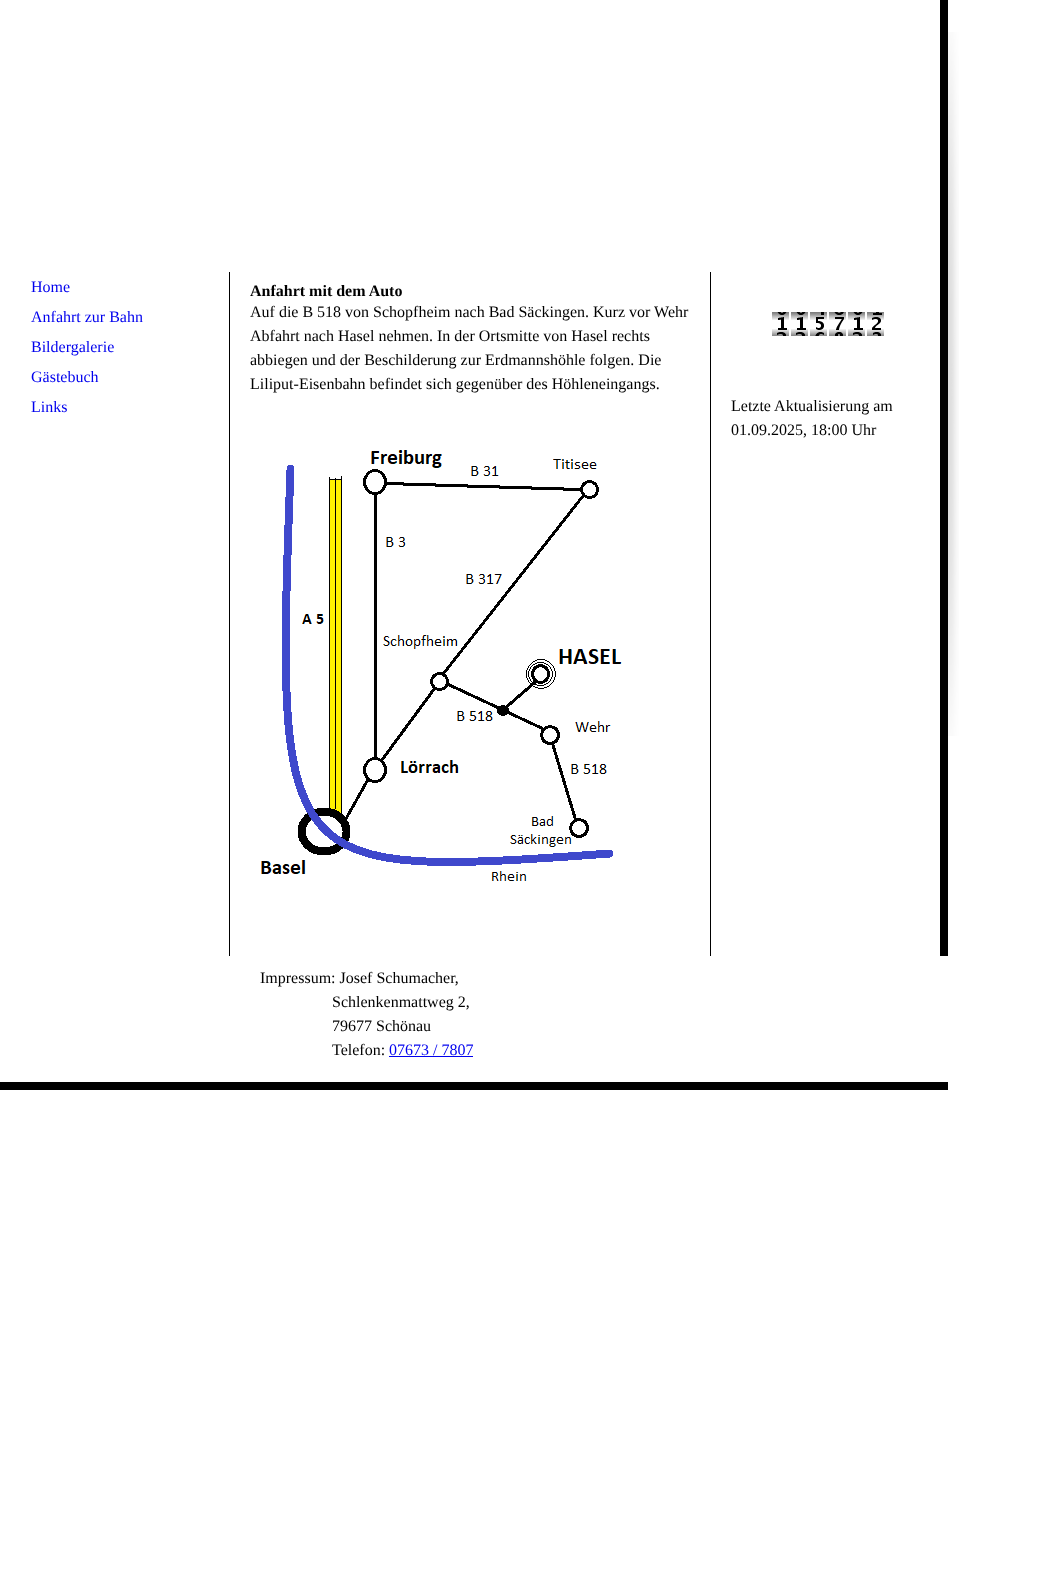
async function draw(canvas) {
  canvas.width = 1063
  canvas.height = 1580
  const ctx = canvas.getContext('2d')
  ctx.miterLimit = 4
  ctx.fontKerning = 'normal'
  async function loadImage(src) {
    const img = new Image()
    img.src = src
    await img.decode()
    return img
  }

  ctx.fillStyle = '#fff'
  ctx.fillRect(0, 0, 1063, 1580)
  ctx.fillStyle = '#000'
  ctx.fillRect(229, 272, 1, 684)
  ctx.font = '16px Liberation Serif'
  ctx.fillStyle = '#00e'
  ctx.fillText('Home', 31, 292)
  ctx.fillText('Anfahrt zur Bahn', 31, 322)
  ctx.fillText('Bildergalerie', 31, 352)
  ctx.fillText('Gästebuch', 31, 382)
  ctx.fillText('Links', 31, 412)
  ctx.font = 'bold 16px Liberation Serif'
  ctx.fillStyle = '#000'
  ctx.fillText('Anfahrt mit dem Auto', 250, 296)
  ctx.font = '16px Liberation Serif'
  ctx.fillText('Auf die B 518 von Schopfheim nach Bad Säckingen. Kurz vor Wehr', 250, 317)
  ctx.fillText('Abfahrt nach Hasel nehmen. In der Ortsmitte von Hasel rechts', 250, 341)
  ctx.fillText('abbiegen und der Beschilderung zur Erdmannshöhle folgen. Die', 250, 365)
  ctx.fillText('Liliput-Eisenbahn befindet sich gegenüber des Höhleneingangs.', 250, 389)
  ctx.drawImage(await loadImage('image0.png'), 252, 444, 386, 445)
  ctx.fillRect(710, 272, 1, 684)
  ctx.drawImage(await loadImage('image1.png'), 772, 312, 112, 24)
  ctx.fillText('Letzte Aktualisierung am', 731, 411)
  ctx.fillText('01.09.2025, 18:00 Uhr', 731, 435)
  ctx.fillRect(940, 0, 8, 956)
  ctx.fillRect(0, 1082, 948, 8)
  ctx.fillText('Impressum: Josef Schumacher,', 260, 983)
  ctx.fillText('Schlenkenmattweg 2,', 332, 1007)
  ctx.fillText('79677 Schönau', 332, 1031)
  ctx.fillText('Telefon:', 332, 1055)
  ctx.fillStyle = '#00e'
  ctx.fillText('07673 / 7807', 389, 1055)
  ctx.fillRect(389, 1056, 84, 1)
  ctx.drawImage(await loadImage('image2.png'), 948, 32, 11, 704)
}

draw(document.querySelector('canvas'))
